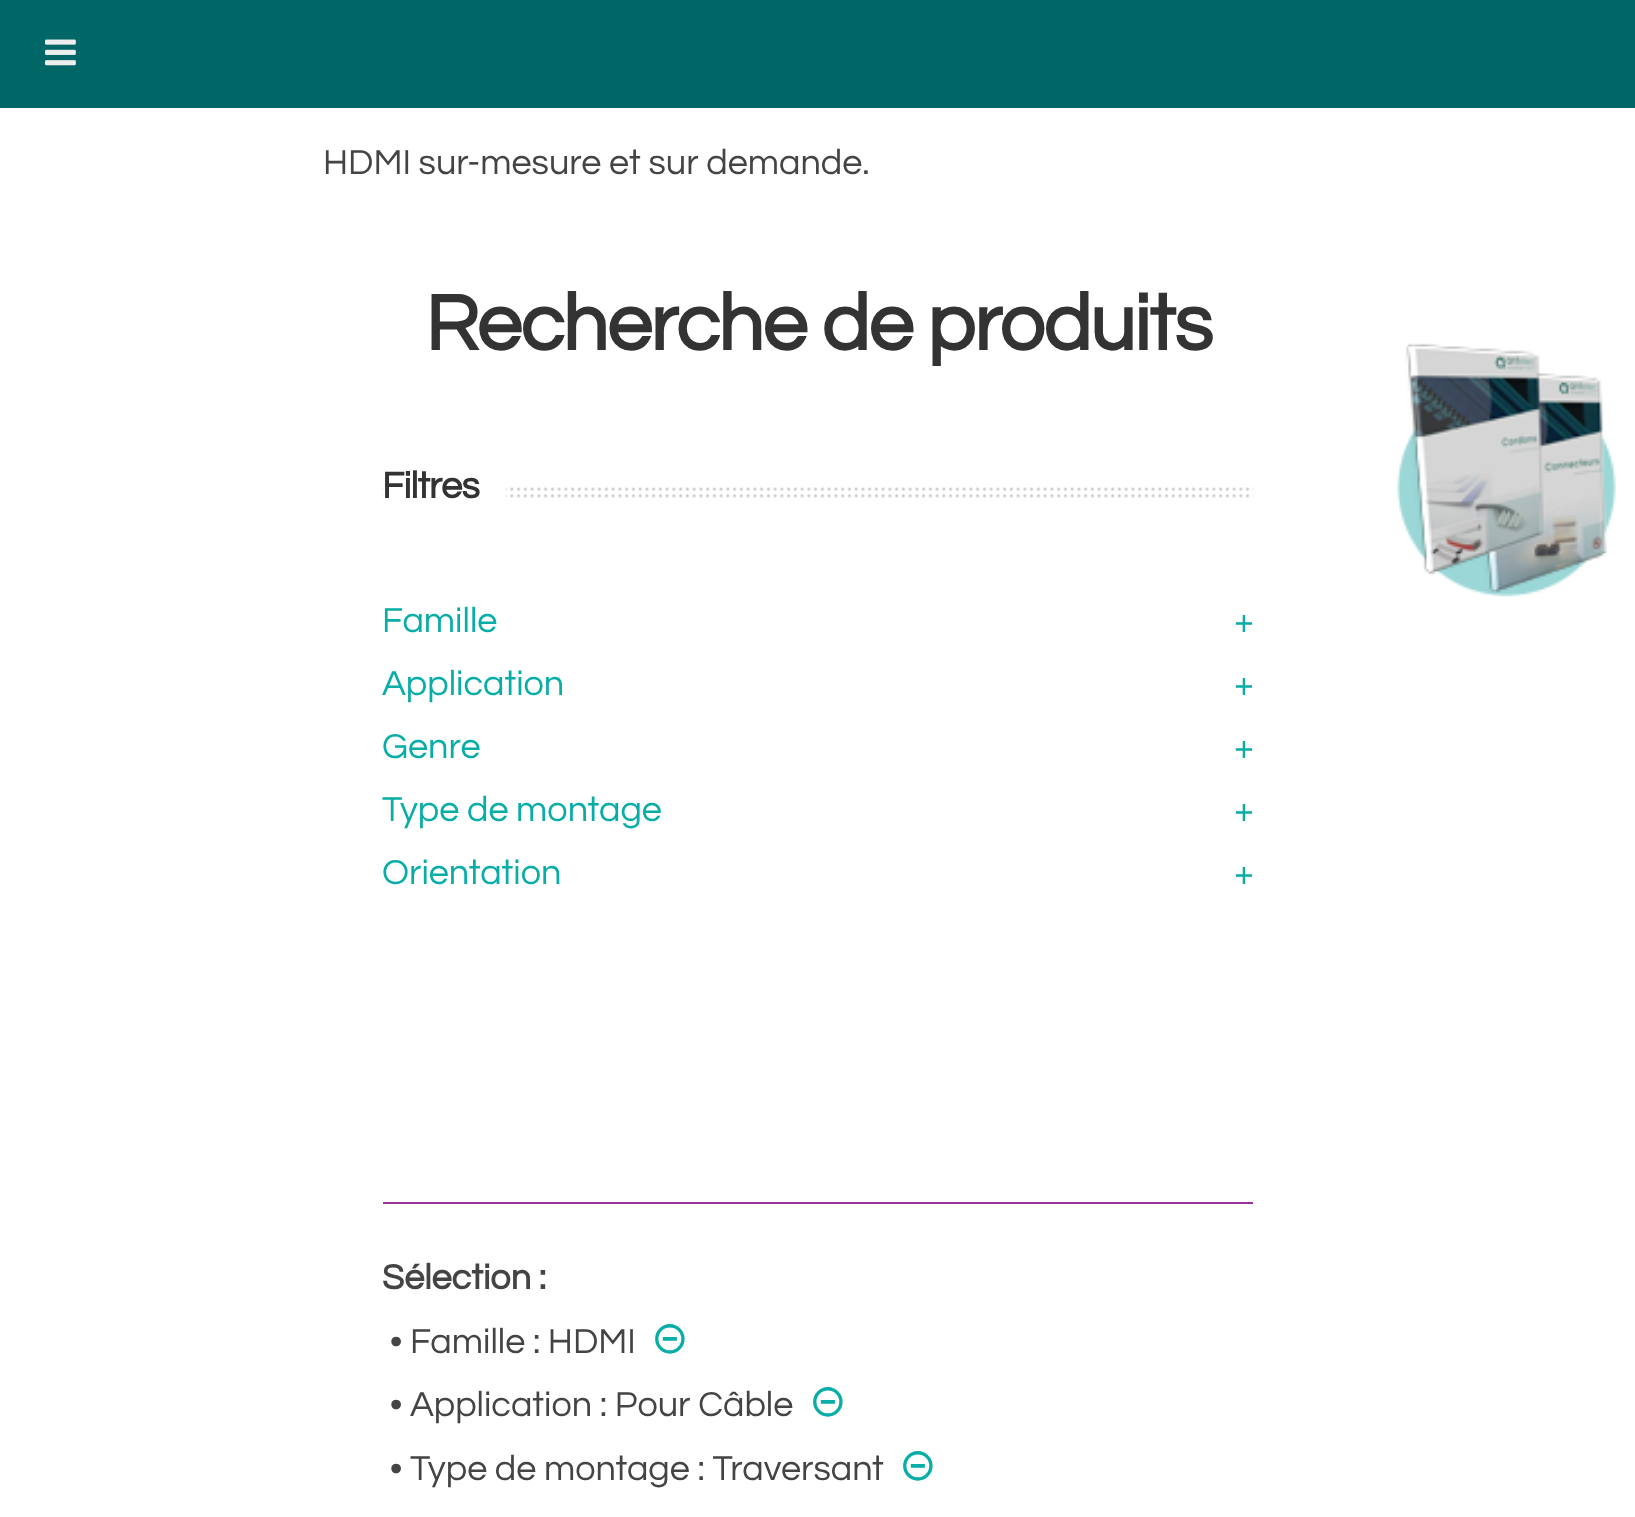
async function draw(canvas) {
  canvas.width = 1635
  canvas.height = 1517
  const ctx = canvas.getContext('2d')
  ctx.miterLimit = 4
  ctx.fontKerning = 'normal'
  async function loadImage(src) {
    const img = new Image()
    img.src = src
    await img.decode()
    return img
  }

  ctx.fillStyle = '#fff'
  ctx.fillRect(0, 0, 1635, 1517)
  ctx.fillStyle = '#066'
  ctx.fillRect(0, 0, 1635, 108)
  ctx.drawImage(await loadImage('image0.png'), 45, 39, 31, 27)
  ctx.font = '36px Questrial'
  ctx.fillStyle = '#444'
  ctx.fillText('HDMI sur-mesure et sur demande.', 323, 174)
  ctx.letterSpacing = '-1.6px'
  ctx.font = 'bold 81px Questrial'
  ctx.fillStyle = '#333'
  ctx.fillText('Recherche de produits', 425, 350)
  ctx.drawImage(await loadImage('image1.png'), 382, 487, 872, 11)
  ctx.fillStyle = '#fff'
  ctx.fillRect(383, 487, 123, 11)
  ctx.letterSpacing = '-0.75px'
  ctx.font = 'bold 38px Questrial'
  ctx.fillStyle = '#333'
  ctx.fillText('Filtres', 382, 498)
  ctx.letterSpacing = '0px'
  ctx.font = '36px Questrial'
  ctx.fillStyle = '#08ada7'
  ctx.fillText('Famille', 382, 632)
  ctx.fillText('+', 1234, 632)
  ctx.fillText('Application', 382, 695)
  ctx.fillText('+', 1234, 695)
  ctx.fillText('Genre', 382, 758)
  ctx.fillText('+', 1234, 758)
  ctx.fillText('Type de montage', 382, 821)
  ctx.fillText('+', 1234, 821)
  ctx.fillText('Orientation', 382, 884)
  ctx.fillText('+', 1234, 884)
  ctx.fillStyle = '#939'
  ctx.fillRect(383, 1202, 870, 2)
  ctx.font = 'bold 36px Questrial'
  ctx.fillStyle = '#444'
  ctx.fillText('Sélection :', 382, 1289)
  ctx.font = '36px Questrial'
  ctx.fillText('• Famille : HDMI', 390, 1353)
  ctx.font = '45px DejaVu Sans'
  ctx.fillStyle = '#08ada7'
  ctx.fillText('⊝', 651, 1353)
  ctx.font = '36px Questrial'
  ctx.fillStyle = '#444'
  ctx.fillText('• Application : Pour Câble', 390, 1416)
  ctx.font = '45px DejaVu Sans'
  ctx.fillStyle = '#08ada7'
  ctx.fillText('⊝', 809, 1416)
  ctx.font = '36px Questrial'
  ctx.fillStyle = '#444'
  ctx.fillText('• Type de montage : Traversant', 390, 1480)
  ctx.font = '45px DejaVu Sans'
  ctx.fillStyle = '#08ada7'
  ctx.fillText('⊝', 899, 1480)
  ctx.drawImage(await loadImage('image2.png'), 1396, 343, 220, 254)
}

draw(document.querySelector('canvas'))
